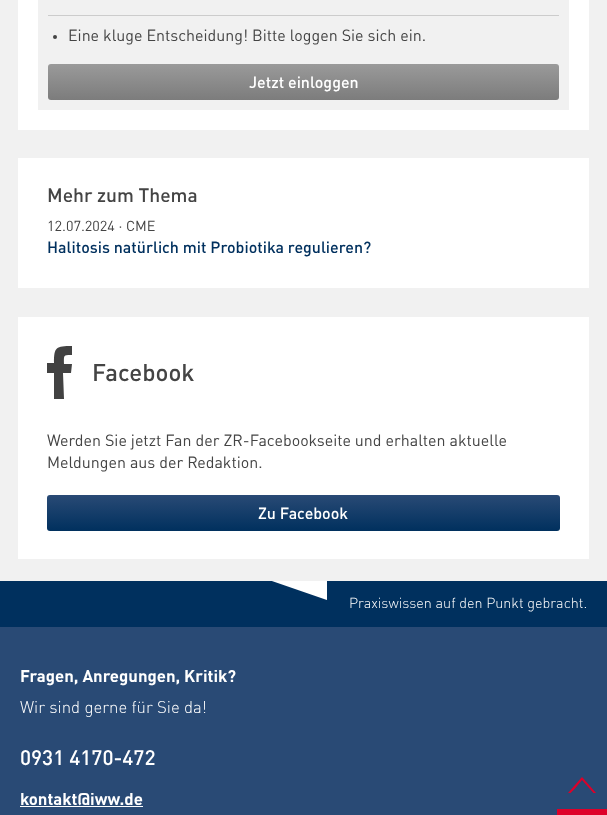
async function draw(canvas) {
  canvas.width = 607
  canvas.height = 815
  const ctx = canvas.getContext('2d')
  ctx.miterLimit = 4
  ctx.fontKerning = 'normal'
  async function loadImage(src) {
    const img = new Image()
    img.src = src
    await img.decode()
    return img
  }
  let gradient

  ctx.fillStyle = '#f1f1f1'
  ctx.fillRect(0, 0, 607, 815)
  ctx.fillStyle = '#fff'
  ctx.fillRect(18, 0, 571, 130)
  ctx.fillStyle = '#f1f1f1'
  ctx.fillRect(38, 0, 531, 110)
  ctx.fillStyle = '#ccc'
  ctx.fillRect(48, 15, 511, 1)
  ctx.fillStyle = '#444'
  ctx.beginPath()
  ctx.arc(55, 37, 2, 0, 2 * Math.PI)
  ctx.fill()
  ctx.font = '16px DIN'
  ctx.fillText('Eine kluge Entscheidung! Bitte loggen Sie sich ein.', 68, 41)
  gradient = ctx.createLinearGradient(304, 64, 304, 100)
  gradient.addColorStop(0, '#9a9a9a')
  gradient.addColorStop(1, '#7c7c7c')
  ctx.fillStyle = gradient
  ctx.beginPath()
  ctx.roundRect(48, 64, 511, 36, 3)
  ctx.fill()
  ctx.font = '500 16px DIN'
  ctx.fillStyle = '#fff'
  ctx.fillText('Jetzt einloggen', 249, 88)
  ctx.fillRect(18, 158, 571, 130)
  ctx.font = '500 19.25px DIN'
  ctx.fillStyle = '#444'
  ctx.fillText('Mehr zum Thema', 47, 202)
  ctx.font = '14.4px DIN'
  ctx.fillText('12.07.2024 · CME', 47, 231)
  ctx.font = '500 16px DIN'
  ctx.fillStyle = '#00305e'
  ctx.fillText('Halitosis natürlich mit Probiotika regulieren?', 47, 253)
  ctx.fillStyle = '#fff'
  ctx.fillRect(18, 317, 571, 242)
  ctx.fillStyle = '#424242'
  ctx.beginPath()
  ctx.moveTo(64, 399)
  ctx.lineTo(54, 399)
  ctx.lineTo(54, 373)
  ctx.lineTo(47, 373)
  ctx.lineTo(47, 363)
  ctx.lineTo(54, 363)
  ctx.bezierCurveTo(54, 347, 56, 346, 72, 346)
  ctx.lineTo(72, 355)
  ctx.bezierCurveTo(63, 355, 64, 355, 64, 364)
  ctx.lineTo(72, 364)
  ctx.lineTo(71, 373)
  ctx.lineTo(63, 373)
  ctx.closePath()
  ctx.fill()
  ctx.font = '500 24px DIN'
  ctx.fillStyle = '#444'
  ctx.fillText('Facebook', 92, 381)
  ctx.font = '16px DIN'
  ctx.fillText('Werden Sie jetzt Fan der ZR-Facebookseite und erhalten aktuelle', 47, 446)
  ctx.fillText('Meldungen aus der Redaktion.', 47, 468)
  gradient = ctx.createLinearGradient(304, 495, 304, 531)
  gradient.addColorStop(0, '#294a75')
  gradient.addColorStop(1, '#00305e')
  ctx.fillStyle = gradient
  ctx.beginPath()
  ctx.roundRect(47, 495, 513, 36, 3)
  ctx.fill()
  ctx.font = '500 16px DIN'
  ctx.fillStyle = '#fff'
  ctx.fillText('Zu Facebook', 258, 519)
  ctx.fillStyle = '#00305e'
  ctx.fillRect(0, 581, 607, 46)
  ctx.drawImage(await loadImage('image0.png'), 272, 581, 55, 19)
  ctx.font = '300 14.4px DIN'
  ctx.fillStyle = '#fff'
  ctx.fillText('Praxiswissen auf den Punkt gebracht.', 349, 608)
  ctx.fillStyle = '#294a75'
  ctx.fillRect(0, 627, 607, 188)
  ctx.font = 'bold 16.75px DIN'
  ctx.fillStyle = '#fff'
  ctx.fillText('Fragen, Anregungen, Kritik?', 20, 682)
  ctx.font = '300 16.75px DIN'
  ctx.fillText('Wir sind gerne für Sie da!', 20, 713)
  ctx.font = '500 20.75px DIN'
  ctx.fillText('0931 4170-472', 20, 765)
  ctx.font = 'bold 16.75px DIN'
  ctx.fillText('kontakt@iww.de', 20, 805)
  ctx.fillRect(20, 806, 123, 1)
  ctx.fillStyle = '#de0029'
  ctx.fillRect(557, 809, 50, 6)
  ctx.beginPath()
  ctx.moveTo(575, 788.5)
  ctx.lineTo(582, 780)
  ctx.lineTo(593.5, 793)
  ctx.lineTo(596, 793)
  ctx.lineTo(582, 777)
  ctx.lineTo(568, 793)
  ctx.lineTo(570.5, 793)
  ctx.closePath()
  ctx.fill()
}

draw(document.querySelector('canvas'))
